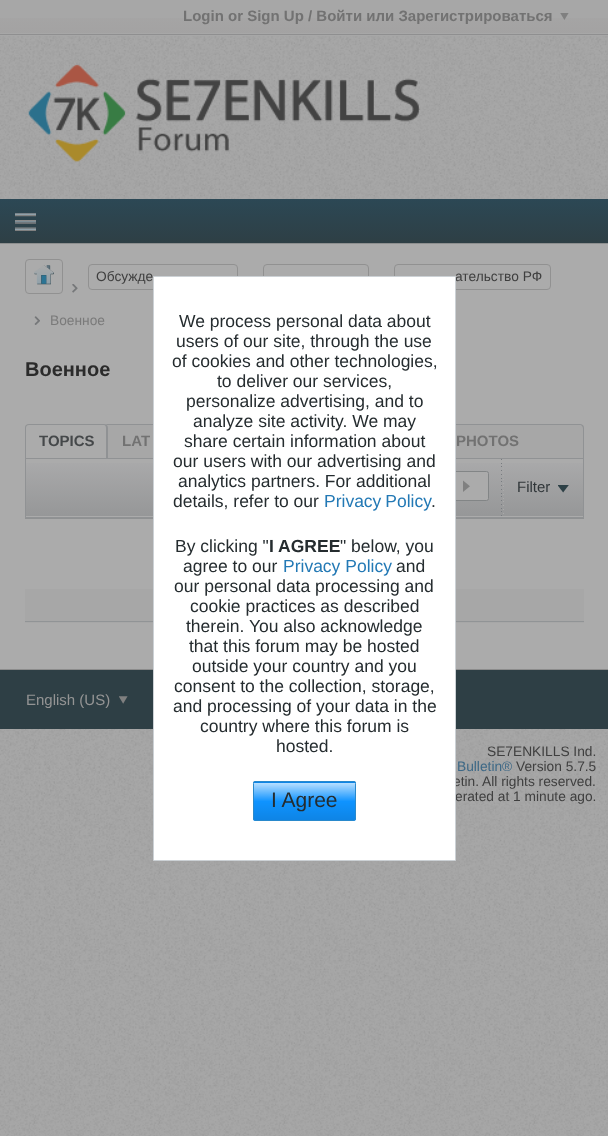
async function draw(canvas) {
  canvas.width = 608
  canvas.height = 1136
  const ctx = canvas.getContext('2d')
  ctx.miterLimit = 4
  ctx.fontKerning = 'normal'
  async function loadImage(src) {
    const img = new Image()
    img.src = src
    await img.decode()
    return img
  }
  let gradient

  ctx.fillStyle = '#a7a7a7'
  ctx.fillRect(0, 0, 608, 1136)
  ctx.drawImage(await loadImage('image0.png'), 0, 36, 608, 1100)
  gradient = ctx.createLinearGradient(304, 0, 304, 35)
  gradient.addColorStop(0, '#a7a7a7')
  gradient.addColorStop(1, '#a3a2a2')
  ctx.fillStyle = gradient
  ctx.fillRect(0, 18, 608, 15)
  ctx.font = 'bold 15px Liberation Sans'
  ctx.fillStyle = '#727272'
  ctx.fillText('Login or Sign Up / Войти или Зарегистрироваться', 183, 21)
  ctx.drawImage(await loadImage('image1.png'), 560, 13, 9, 7)
  ctx.fillStyle = '#8f8f90'
  ctx.fillRect(0, 34, 608, 1)
  ctx.drawImage(await loadImage('image2.png'), 28, 64, 393, 98)
  gradient = ctx.createLinearGradient(304, 199, 304, 243)
  gradient.addColorStop(0, '#2c4855')
  gradient.addColorStop(1, '#2e3f45')
  ctx.fillStyle = gradient
  ctx.fillRect(0, 199, 608, 44)
  ctx.fillStyle = '#8d8f8f'
  ctx.fillRect(0, 243, 608, 1)
  ctx.drawImage(await loadImage('image3.png'), 15, 213, 21, 18)
  ctx.fillStyle = '#ababab'
  ctx.fillRect(0, 244, 608, 425)
  ctx.beginPath()
  ctx.roundRect(25.5, 259.5, 37, 34, 3.5)
  ctx.strokeStyle = '#919191'
  ctx.stroke()
  ctx.drawImage(await loadImage('image4.png'), 34, 265, 20, 20)
  ctx.beginPath()
  ctx.roundRect(88.5, 264.5, 149, 25, 3.5)
  ctx.stroke()
  ctx.font = '13.75px Liberation Sans'
  ctx.fillStyle = '#3f3f3f'
  ctx.fillText('Обсужде', 96, 281)
  ctx.drawImage(await loadImage('image5.png'), 72, 284, 6, 9)
  ctx.beginPath()
  ctx.roundRect(263.5, 264.5, 105, 25, 3.5)
  ctx.stroke()
  ctx.beginPath()
  ctx.roundRect(394.5, 264.5, 156, 25, 3.5)
  ctx.stroke()
  ctx.fillText('ательство РФ', 455, 281)
  ctx.drawImage(await loadImage('image6.png'), 34, 316, 6, 9)
  ctx.fillStyle = '#7a7a7a'
  ctx.fillText('Военное', 50, 325)
  ctx.font = 'bold 20px Liberation Sans'
  ctx.fillStyle = '#2b2b2b'
  ctx.fillText('Военное', 25, 376)
  ctx.fillStyle = '#909294'
  ctx.beginPath()
  ctx.moveTo(29, 424)
  ctx.lineTo(580, 424)
  ctx.bezierCurveTo(582, 424, 584, 425, 584, 428)
  ctx.lineTo(584, 458)
  ctx.lineTo(25, 458)
  ctx.lineTo(25, 428)
  ctx.bezierCurveTo(25, 425, 27, 424, 29, 424)
  ctx.closePath()
  ctx.moveTo(29, 425)
  ctx.lineTo(580, 425)
  ctx.bezierCurveTo(581, 425, 582, 426, 582, 428)
  ctx.lineTo(582, 458)
  ctx.lineTo(26, 458)
  ctx.lineTo(26, 428)
  ctx.bezierCurveTo(26, 426, 27, 425, 29, 425)
  ctx.closePath()
  ctx.fill('evenodd')
  ctx.fillStyle = '#a7a7a7'
  ctx.beginPath()
  ctx.roundRect(26, 425, 557, 33, [4, 4, 0, 4])
  ctx.fill()
  ctx.fillStyle = '#ababab'
  ctx.beginPath()
  ctx.roundRect(25, 424, 83, 34, [4, 4, 0, 0])
  ctx.fill()
  ctx.fillStyle = '#909294'
  ctx.beginPath()
  ctx.moveTo(29, 424)
  ctx.lineTo(104, 424)
  ctx.bezierCurveTo(106, 424, 108, 425, 108, 428)
  ctx.lineTo(108, 458)
  ctx.lineTo(25, 458)
  ctx.lineTo(25, 428)
  ctx.bezierCurveTo(25, 425, 27, 424, 29, 424)
  ctx.closePath()
  ctx.moveTo(29, 425)
  ctx.lineTo(104, 425)
  ctx.bezierCurveTo(105, 425, 106, 426, 106, 428)
  ctx.lineTo(106, 458)
  ctx.lineTo(26, 458)
  ctx.lineTo(26, 428)
  ctx.bezierCurveTo(26, 426, 27, 425, 29, 425)
  ctx.closePath()
  ctx.fill('evenodd')
  ctx.font = 'bold 15px Liberation Sans'
  ctx.fillStyle = '#45484a'
  ctx.fillText('TOPICS', 39, 446)
  ctx.fillStyle = '#727272'
  ctx.fillText('LAT', 122, 446)
  ctx.fillText('PHOTOS', 456, 446)
  gradient = ctx.createLinearGradient(304, 459, 304, 516)
  gradient.addColorStop(0, '#aaaaab')
  gradient.addColorStop(1, '#969798')
  ctx.fillStyle = gradient
  ctx.fillRect(26, 463, 557, 53)
  ctx.strokeStyle = '#909294'
  ctx.strokeRect(25.5, 458.5, 558, 59)
  ctx.fillStyle = '#ababab'
  ctx.beginPath()
  ctx.roundRect(384.5, 471.5, 104, 29, 2)
  ctx.fill()
  ctx.strokeStyle = '#828586'
  ctx.stroke()
  ctx.drawImage(await loadImage('image7.png'), 463, 480, 7, 12)
  ctx.drawImage(await loadImage('image8.png'), 501, 459, 1, 57)
  ctx.drawImage(await loadImage('image9.png'), 503, 464, 1, 50)
  ctx.font = '15px Liberation Sans'
  ctx.fillStyle = '#303639'
  ctx.fillText('Filter', 517, 492)
  ctx.drawImage(await loadImage('image10.png'), 558, 485, 11, 8)
  ctx.fillStyle = '#8f9192'
  ctx.fillRect(25, 518, 559, 1)
  ctx.fillStyle = '#a7a7a7'
  ctx.fillRect(25, 589, 559, 34)
  ctx.fillStyle = '#919496'
  ctx.fillRect(25, 621, 559, 1)
  ctx.fillStyle = '#2e3f45'
  ctx.fillRect(0, 670, 608, 59)
  ctx.fillStyle = '#8c8c8c'
  ctx.fillRect(0, 669, 608, 1)
  ctx.fillStyle = '#949494'
  ctx.fillText('English (US)', 26, 705)
  ctx.drawImage(await loadImage('image11.png'), 119, 696, 9, 8)
  ctx.font = '13.75px Liberation Sans'
  ctx.fillStyle = '#3f3f3f'
  ctx.fillText('SE7ENKILLS Ind.', 487, 756)
  ctx.fillStyle = '#3d6886'
  ctx.fillText('Bulletin®', 457, 771)
  ctx.fillStyle = '#3f3f3f'
  ctx.fillText('Version 5.7.5', 516, 771)
  ctx.fillText('etin. All rights reserved.', 453, 786)
  ctx.fillText('erated at 1 minute ago.', 455, 801)
  ctx.fillStyle = '#fff'
  ctx.beginPath()
  ctx.rect(153.5, 276.5, 302, 584)
  ctx.fill()
  ctx.strokeStyle = '#ccd1d5'
  ctx.stroke()
  ctx.font = '17.5px Liberation Sans'
  ctx.fillStyle = '#252c2f'
  ctx.fillText('We process personal data about', 179, 327)
  ctx.fillText('users of our site, through the use', 176, 347)
  ctx.fillText('of cookies and other technologies,', 172, 367)
  ctx.fillText('to deliver our services,', 217, 387)
  ctx.fillText('personalize advertising, and to', 186, 407)
  ctx.fillText('analyze site activity. We may', 193, 427)
  ctx.fillText('share certain information about', 184, 447)
  ctx.fillText('our users with our advertising and', 173, 467)
  ctx.fillText('analytics partners. For additional', 178, 487)
  ctx.fillText('details, refer to our', 173, 507)
  ctx.wordSpacing = '-1px'
  ctx.fillStyle = '#2379b5'
  ctx.fillText('Privacy Policy', 324, 507)
  ctx.wordSpacing = '0px'
  ctx.fillStyle = '#252c2f'
  ctx.fillText('.', 431, 507)
  ctx.fillText('By clicking "', 175, 552)
  ctx.font = 'bold 17.5px Liberation Sans'
  ctx.fillText('I AGREE', 269, 552)
  ctx.font = '17.5px Liberation Sans'
  ctx.fillText('" below, you', 340, 552)
  ctx.fillText('agree to our', 183, 572)
  ctx.fillStyle = '#2379b5'
  ctx.fillText('Privacy Policy', 283, 572)
  ctx.fillStyle = '#252c2f'
  ctx.fillText('and', 396, 572)
  ctx.fillText('our personal data processing and', 174, 592)
  ctx.fillText('cookie practices as described', 190, 612)
  ctx.fillText('therein. You also acknowledge', 186, 632)
  ctx.fillText('that this forum may be hosted', 189, 652)
  ctx.fillText('outside your country and you', 192, 672)
  ctx.fillText('consent to the collection, storage,', 174, 692)
  ctx.fillText('and processing of your data in the', 173, 712)
  ctx.fillText('country where this forum is', 200, 732)
  ctx.fillText('hosted.', 276, 752)
  ctx.fillStyle = '#0f93ff'
  ctx.beginPath()
  ctx.roundRect(253, 781, 103, 40, 2.5)
  ctx.fill()
  gradient = ctx.createLinearGradient(305, 783, 305, 745)
  gradient.addColorStop(0, '#0000001a')
  gradient.addColorStop(0.5, '#00000000')
  gradient.addColorStop(0.5, '#ffffff00')
  gradient.addColorStop(1, '#ffffffb3')
  ctx.fillStyle = gradient
  ctx.fillRect(253, 781, 103, 2)
  gradient = ctx.createLinearGradient(305, 820, 305, 783)
  gradient.addColorStop(0, '#0000001a')
  gradient.addColorStop(0.5, '#00000000')
  gradient.addColorStop(0.5, '#ffffff00')
  gradient.addColorStop(1, '#ffffffb3')
  ctx.fillStyle = gradient
  ctx.fillRect(253, 783, 103, 37)
  ctx.beginPath()
  ctx.roundRect(253.5, 781.5, 102, 39, 2)
  ctx.strokeStyle = '#2989cc'
  ctx.stroke()
  ctx.font = '21px Liberation Sans'
  ctx.fillStyle = '#252c2f'
  ctx.fillText('I Agree', 271, 807)
}

draw(document.querySelector('canvas'))
